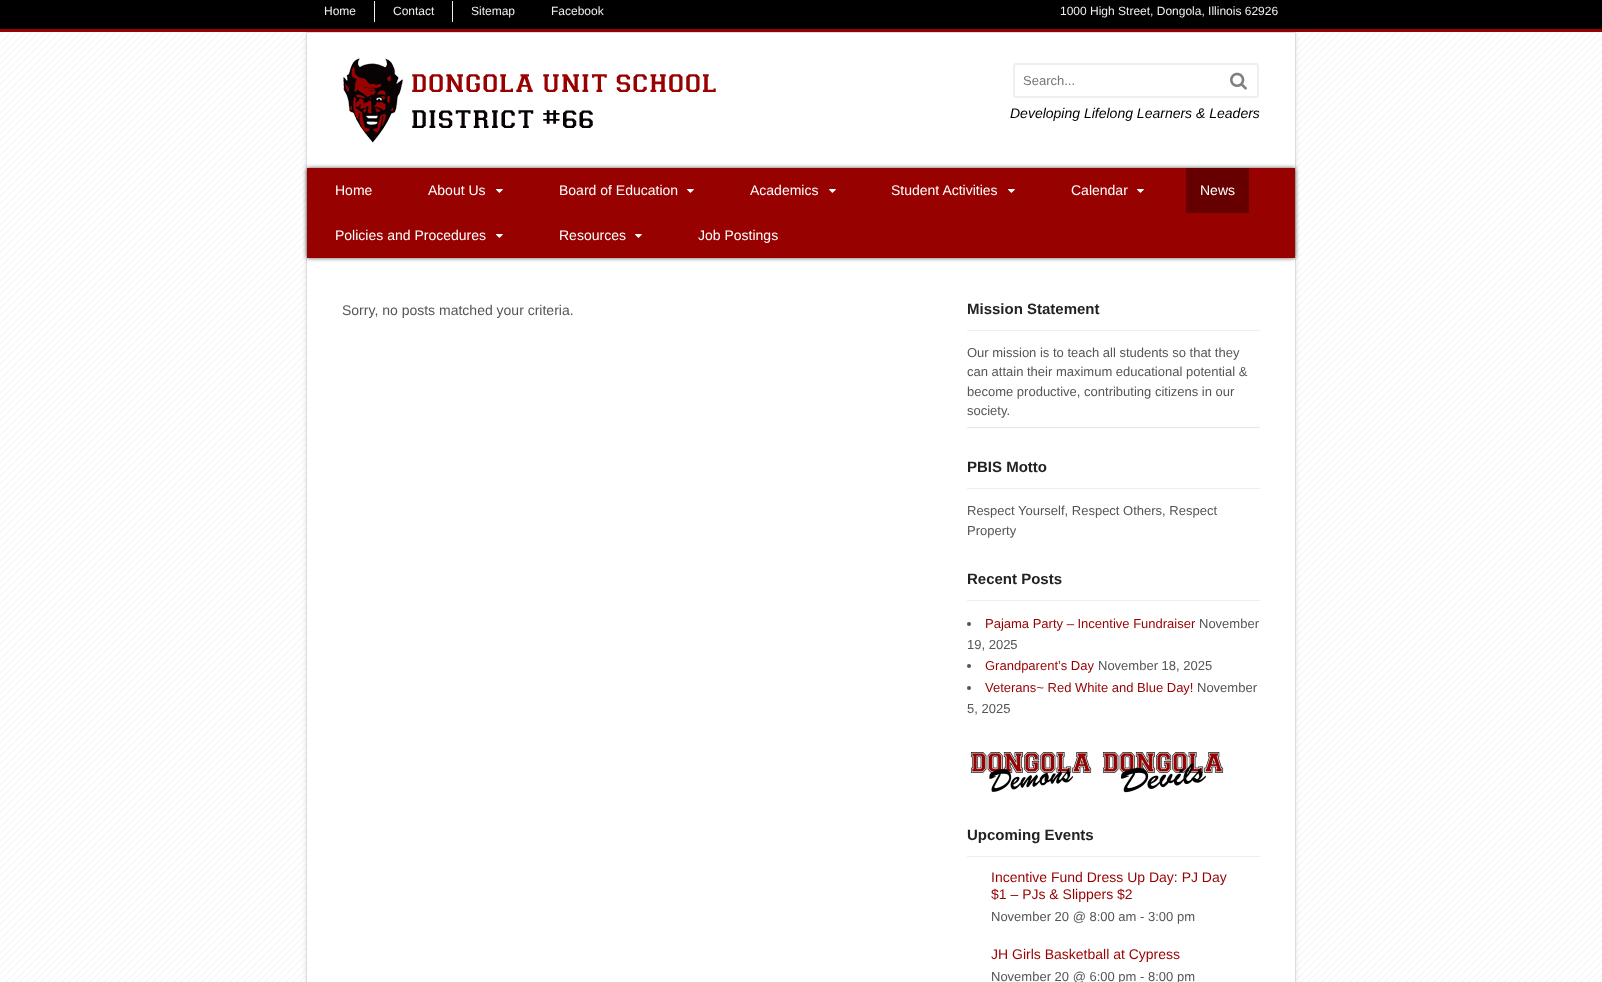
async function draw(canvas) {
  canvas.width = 1602
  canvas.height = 982
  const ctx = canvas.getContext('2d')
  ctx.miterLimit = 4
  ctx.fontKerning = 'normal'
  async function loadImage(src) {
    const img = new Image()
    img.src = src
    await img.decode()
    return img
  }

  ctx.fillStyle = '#fff'
  ctx.fillRect(0, 0, 1602, 982)
  ctx.drawImage(await loadImage('image0.png'), 0, 32, 1602, 950)
  ctx.fillStyle = '#000'
  ctx.fillRect(0, 0, 1602, 29)
  ctx.fillStyle = '#970100'
  ctx.fillRect(0, 29, 1602, 3)
  ctx.fillStyle = '#eee'
  ctx.fillRect(374, 1, 1, 21)
  ctx.font = '12px Liberation Sans'
  ctx.fillText('Home', 324, 15)
  ctx.fillRect(452, 1, 1, 21)
  ctx.fillText('Contact', 393, 15)
  ctx.fillText('Sitemap', 471, 15)
  ctx.fillText('Facebook', 551, 15)
  ctx.fillText('1000 High Street, Dongola, Illinois 62926', 1060, 15)
  ctx.fillStyle = '#0000001a'
  ctx.filter = 'blur(2.5px)'
  ctx.beginPath()
  ctx.rect(306, 33, 990, 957)
  ctx.fill()
  ctx.filter = 'none'
  ctx.fillStyle = '#fff'
  ctx.beginPath()
  ctx.rect(306.5, 32.5, 989, 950)
  ctx.fill()
  ctx.strokeStyle = '#dbdbdb'
  ctx.stroke()
  ctx.drawImage(await loadImage('image1.png'), 343, 58, 373, 85)
  ctx.beginPath()
  ctx.roundRect(1014, 64, 244, 33, 2)
  ctx.strokeStyle = '#efefef'
  ctx.lineWidth = 2
  ctx.stroke()
  ctx.font = '13px Liberation Sans'
  ctx.fillStyle = '#777'
  ctx.fillText('Search...', 1023, 85)
  ctx.drawImage(await loadImage('image2.png'), 1230, 72, 17, 18)
  ctx.font = 'italic 14px Liberation Sans'
  ctx.fillStyle = '#000'
  ctx.fillText('Developing Lifelong Learners & Leaders', 1010, 118)
  ctx.fillStyle = '#000000ad'
  ctx.filter = 'blur(2px)'
  ctx.beginPath()
  ctx.rect(307, 168, 988, 90)
  ctx.fill()
  ctx.filter = 'none'
  ctx.fillStyle = '#970100'
  ctx.fillRect(307, 168, 988, 90)
  ctx.font = '14px Liberation Sans'
  ctx.fillStyle = '#fff'
  ctx.fillText('Home', 335, 195)
  ctx.fillText('About Us', 428, 195)
  ctx.drawImage(await loadImage('image3.png'), 496, 189, 7, 4)
  ctx.fillText('Board of Education', 559, 195)
  ctx.drawImage(await loadImage('image3.png'), 687, 189, 7, 4)
  ctx.fillText('Academics', 750, 195)
  ctx.drawImage(await loadImage('image3.png'), 829, 189, 7, 4)
  ctx.fillText('Student Activities', 891, 195)
  ctx.drawImage(await loadImage('image3.png'), 1008, 189, 7, 4)
  ctx.fillText('Calendar', 1071, 195)
  ctx.drawImage(await loadImage('image3.png'), 1137, 189, 7, 4)
  ctx.fillStyle = '#600'
  ctx.fillRect(1186, 168, 63, 45)
  ctx.fillStyle = '#fff'
  ctx.fillText('News', 1200, 195)
  ctx.fillText('Policies and Procedures', 335, 240)
  ctx.drawImage(await loadImage('image3.png'), 496, 234, 7, 4)
  ctx.fillText('Resources', 559, 240)
  ctx.drawImage(await loadImage('image3.png'), 635, 234, 7, 4)
  ctx.fillText('Job Postings', 698, 240)
  ctx.fillStyle = '#555'
  ctx.fillText('Sorry, no posts matched your criteria.', 342, 315)
  ctx.fillStyle = '#eee'
  ctx.fillRect(967, 330, 293, 1)
  ctx.font = 'bold 15px Liberation Sans'
  ctx.fillStyle = '#222'
  ctx.fillText('Mission Statement', 967, 314)
  ctx.font = '13px Liberation Sans'
  ctx.fillStyle = '#555'
  ctx.fillText('Our mission is to teach all students so that they', 967, 357)
  ctx.fillText('can attain their maximum educational potential &', 967, 376)
  ctx.fillText('become productive, contributing citizens in our', 967, 396)
  ctx.fillText('society.', 967, 415)
  ctx.fillStyle = '#e6e6e6'
  ctx.fillRect(967, 427, 293, 1)
  ctx.fillStyle = '#eee'
  ctx.fillRect(967, 488, 293, 1)
  ctx.font = 'bold 15px Liberation Sans'
  ctx.fillStyle = '#222'
  ctx.fillText('PBIS Motto', 967, 472)
  ctx.font = '13px Liberation Sans'
  ctx.fillStyle = '#555'
  ctx.fillText('Respect Yourself, Respect Others, Respect', 967, 515)
  ctx.fillText('Property', 967, 535)
  ctx.fillStyle = '#eee'
  ctx.fillRect(967, 600, 293, 1)
  ctx.font = 'bold 15px Liberation Sans'
  ctx.fillStyle = '#222'
  ctx.fillText('Recent Posts', 967, 584)
  ctx.fillStyle = '#555'
  ctx.beginPath()
  ctx.arc(969, 624, 2, 0, 2 * Math.PI)
  ctx.fill()
  ctx.font = '13px Liberation Sans'
  ctx.fillStyle = '#970000'
  ctx.fillText('Pajama Party – Incentive Fundraiser', 985, 628)
  ctx.fillStyle = '#555'
  ctx.fillText('November', 1199, 628)
  ctx.fillText('19, 2025', 967, 649)
  ctx.beginPath()
  ctx.arc(969, 666, 2, 0, 2 * Math.PI)
  ctx.fill()
  ctx.fillStyle = '#970000'
  ctx.fillText('Grandparent’s Day', 985, 670)
  ctx.fillStyle = '#555'
  ctx.fillText('November 18, 2025', 1098, 670)
  ctx.beginPath()
  ctx.arc(969, 688, 2, 0, 2 * Math.PI)
  ctx.fill()
  ctx.fillStyle = '#970000'
  ctx.fillText('Veterans~ Red White and Blue Day!', 985, 692)
  ctx.fillStyle = '#555'
  ctx.fillText('November', 1197, 692)
  ctx.fillText('5, 2025', 967, 713)
  ctx.drawImage(await loadImage('image4.png'), 970, 752, 122, 40)
  ctx.drawImage(await loadImage('image5.png'), 1102, 752, 122, 41)
  ctx.fillStyle = '#eee'
  ctx.fillRect(967, 856, 293, 1)
  ctx.font = 'bold 15px Liberation Sans'
  ctx.fillStyle = '#222'
  ctx.fillText('Upcoming Events', 967, 840)
  ctx.font = '14px Liberation Sans'
  ctx.fillStyle = '#970000'
  ctx.fillText('Incentive Fund Dress Up Day: PJ Day', 991, 882)
  ctx.fillText('$1 – PJs & Slippers $2', 991, 899)
  ctx.font = '13px Liberation Sans'
  ctx.fillStyle = '#555'
  ctx.fillText('November 20 @ 8:00 am - 3:00 pm', 991, 921)
  ctx.font = '14px Liberation Sans'
  ctx.fillStyle = '#970000'
  ctx.fillText('JH Girls Basketball at Cypress', 991, 959)
  ctx.font = '13px Liberation Sans'
  ctx.fillStyle = '#555'
  ctx.fillText('November 20 @ 6:00 pm - 8:00 pm', 991, 981)
}

draw(document.querySelector('canvas'))
